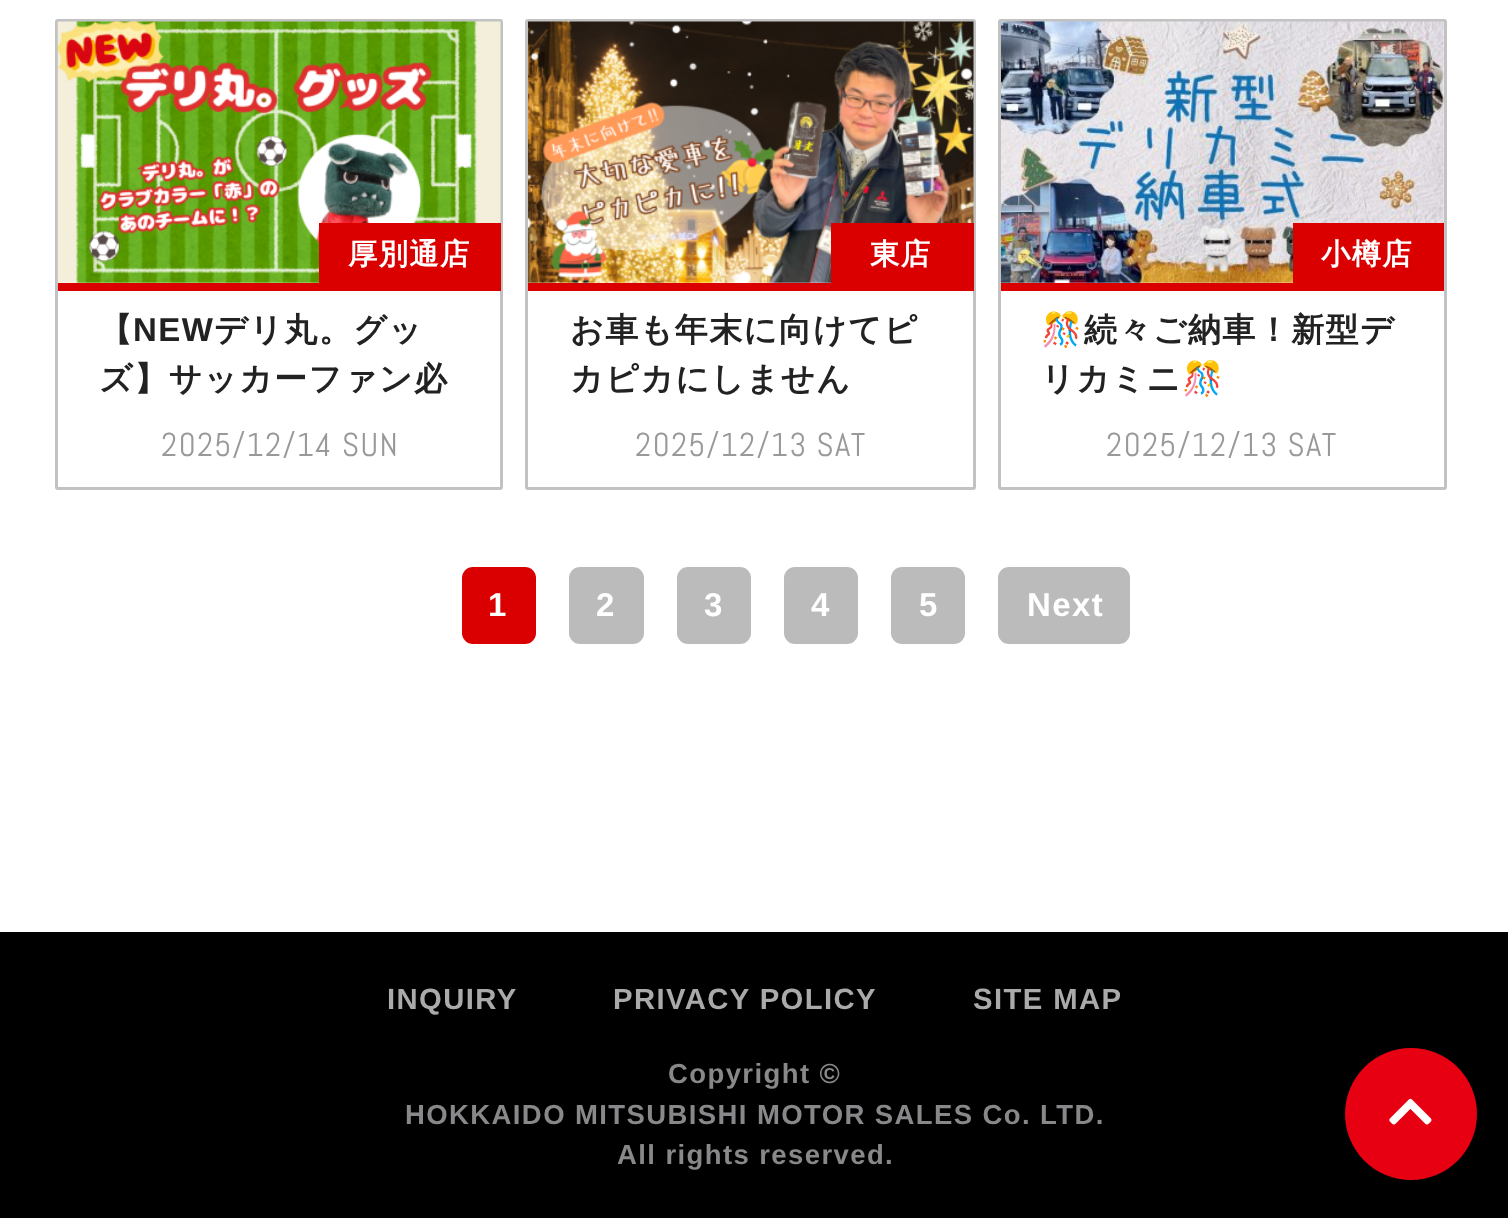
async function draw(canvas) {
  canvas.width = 1508
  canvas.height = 1218
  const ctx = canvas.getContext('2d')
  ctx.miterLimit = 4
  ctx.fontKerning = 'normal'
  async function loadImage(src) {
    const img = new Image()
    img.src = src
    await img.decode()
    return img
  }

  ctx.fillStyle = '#fff'
  ctx.fillRect(0, 0, 1508, 1218)
  ctx.beginPath()
  ctx.roundRect(56.5, 20.5, 445, 468, 1.5)
  ctx.strokeStyle = '#c2c2c2'
  ctx.lineWidth = 3
  ctx.stroke()
  ctx.fillStyle = '#da0000'
  ctx.fillRect(58, 283, 443, 8)
  ctx.drawImage(await loadImage('image0.png'), 57, 21, 444, 262)
  ctx.fillRect(319, 223, 182, 60)
  ctx.letterSpacing = '1.4px'
  ctx.font = 'bold 29.25px WenQuanYi Zen Hei'
  ctx.fillStyle = '#fff'
  ctx.fillText('厚別通店', 348, 264)
  ctx.font = 'bold 33px WenQuanYi Zen Hei'
  ctx.fillStyle = '#222'
  ctx.fillText('【', 99, 341)
  ctx.font = 'bold 33px Liberation Sans'
  ctx.fillText('NEW', 133, 341)
  ctx.font = 'bold 33px WenQuanYi Zen Hei'
  ctx.fillText('デリ丸。グッ', 214, 341)
  ctx.fillText('ズ】サッカーファン必', 99, 390)
  ctx.font = '33px Abel'
  ctx.fillStyle = '#999'
  ctx.fillText('2025/12/14 SUN', 161, 456)
  ctx.beginPath()
  ctx.roundRect(526.5, 20.5, 448, 468, 1.5)
  ctx.stroke()
  ctx.fillStyle = '#da0000'
  ctx.fillRect(528, 283, 446, 8)
  ctx.drawImage(await loadImage('image1.png'), 528, 21, 446, 262)
  ctx.fillRect(831, 223, 143, 60)
  ctx.font = 'bold 29.25px WenQuanYi Zen Hei'
  ctx.fillStyle = '#fff'
  ctx.fillText('東店', 870, 264)
  ctx.font = 'bold 33px WenQuanYi Zen Hei'
  ctx.fillStyle = '#222'
  ctx.fillText('お車も年末に向けてピ', 570, 341)
  ctx.fillText('カピカにしません', 570, 390)
  ctx.font = '33px Abel'
  ctx.fillStyle = '#999'
  ctx.fillText('2025/12/13 SAT', 635, 456)
  ctx.beginPath()
  ctx.roundRect(999.5, 20.5, 446, 468, 1.5)
  ctx.stroke()
  ctx.fillStyle = '#da0000'
  ctx.fillRect(1001, 283, 443, 8)
  ctx.drawImage(await loadImage('image2.png'), 1001, 21, 443, 262)
  ctx.fillRect(1293, 223, 151, 60)
  ctx.font = 'bold 29.25px WenQuanYi Zen Hei'
  ctx.fillStyle = '#fff'
  ctx.fillText('小樽店', 1321, 264)
  ctx.save()
  ctx.beginPath()
  ctx.rect(1042, 305, 361, 99)
  ctx.clip()
  ctx.font = 'bold 33px Noto Color Emoji'
  ctx.fillStyle = '#222'
  ctx.fillText('🎊', 1041, 341)
  ctx.restore()
  ctx.font = 'bold 33px WenQuanYi Zen Hei'
  ctx.fillStyle = '#222'
  ctx.fillText('続々ご納車！新型デ', 1084, 341)
  ctx.fillText('リカミニ', 1041, 390)
  ctx.font = 'bold 33px Noto Color Emoji'
  ctx.fillText('🎊', 1182, 390)
  ctx.font = '33px Abel'
  ctx.fillStyle = '#999'
  ctx.fillText('2025/12/13 SAT', 1106, 456)
  ctx.fillStyle = '#da0001'
  ctx.beginPath()
  ctx.roundRect(462, 567, 74, 77, 11)
  ctx.fill()
  ctx.font = 'bold 33px Liberation Sans'
  ctx.fillStyle = '#fff'
  ctx.fillText('1', 488, 616)
  ctx.fillStyle = '#bbb'
  ctx.beginPath()
  ctx.roundRect(569, 567, 75, 77, 11)
  ctx.fill()
  ctx.fillStyle = '#fff'
  ctx.fillText('2', 596, 616)
  ctx.fillStyle = '#bbb'
  ctx.beginPath()
  ctx.roundRect(677, 567, 74, 77, 11)
  ctx.fill()
  ctx.fillStyle = '#fff'
  ctx.fillText('3', 704, 616)
  ctx.fillStyle = '#bbb'
  ctx.beginPath()
  ctx.roundRect(784, 567, 74, 77, 11)
  ctx.fill()
  ctx.fillStyle = '#fff'
  ctx.fillText('4', 811, 616)
  ctx.fillStyle = '#bbb'
  ctx.beginPath()
  ctx.roundRect(891, 567, 74, 77, 11)
  ctx.fill()
  ctx.fillStyle = '#fff'
  ctx.fillText('5', 919, 616)
  ctx.fillStyle = '#bbb'
  ctx.beginPath()
  ctx.roundRect(998, 567, 132, 77, 11)
  ctx.fill()
  ctx.fillStyle = '#fff'
  ctx.fillText('Next', 1027, 616)
  ctx.fillStyle = '#000'
  ctx.fillRect(0, 932, 1508, 286)
  ctx.font = 'bold 29.25px Liberation Sans'
  ctx.fillStyle = '#aaa'
  ctx.fillText('INQUIRY', 387, 1009)
  ctx.fillText('PRIVACY POLICY', 613, 1009)
  ctx.fillText('SITE MAP', 973, 1009)
  ctx.font = 'bold 27.5px Liberation Sans'
  ctx.fillStyle = '#88888a'
  ctx.fillText('Copyright ©', 668, 1083)
  ctx.fillText('HOKKAIDO MITSUBISHI MOTOR SALES Co. LTD.', 405, 1124)
  ctx.fillText('All rights reserved.', 617, 1164)
  ctx.fillStyle = '#e60012'
  ctx.beginPath()
  ctx.arc(1411, 1114, 66, 0, 2 * Math.PI)
  ctx.fill()
  ctx.drawImage(await loadImage('image3.png'), 1389, 1098, 43, 27)
}

draw(document.querySelector('canvas'))
